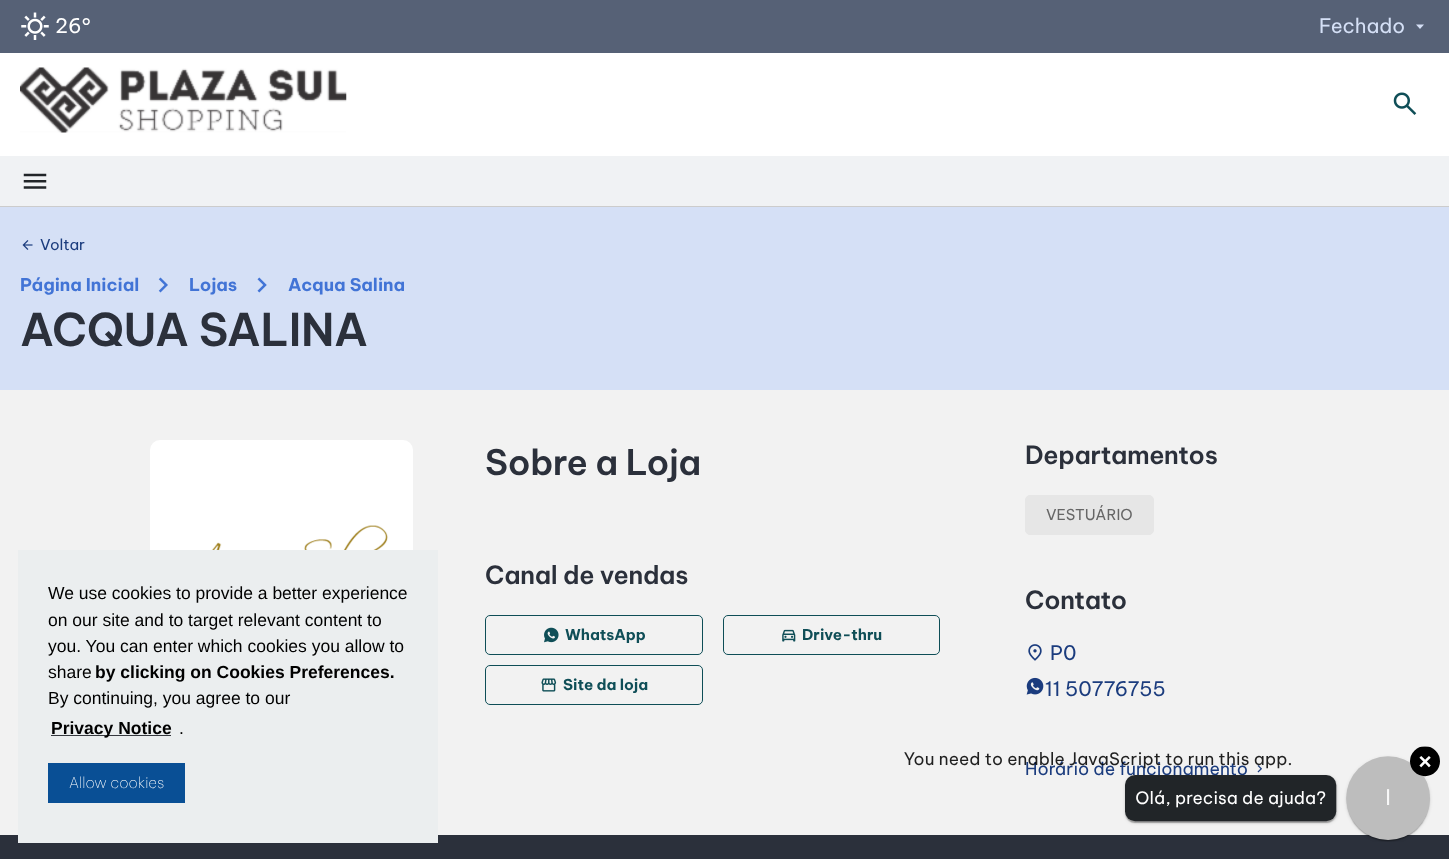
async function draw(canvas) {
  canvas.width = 1449
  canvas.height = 859
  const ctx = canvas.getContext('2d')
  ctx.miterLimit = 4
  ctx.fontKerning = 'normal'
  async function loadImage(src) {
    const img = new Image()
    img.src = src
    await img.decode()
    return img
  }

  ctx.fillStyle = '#fff'
  ctx.fillRect(0, 0, 1449, 859)
  ctx.fillStyle = '#566176'
  ctx.fillRect(0, 0, 1449, 53)
  ctx.drawImage(await loadImage('image0.png'), 21, 12, 28, 28)
  ctx.font = '20px Be Vietnam Pro'
  ctx.fillStyle = '#fff'
  ctx.fillText('26°', 55, 33)
  ctx.fillStyle = '#d5e0f6'
  ctx.fillText('Fechado', 1319, 33)
  ctx.beginPath()
  ctx.moveTo(1420, 29)
  ctx.lineTo(1416, 24.5)
  ctx.lineTo(1424, 24.5)
  ctx.closePath()
  ctx.fill()
  ctx.drawImage(await loadImage('image1.png'), 20, 67, 327, 66)
  ctx.drawImage(await loadImage('image2.png'), 1393, 92, 24, 23)
  ctx.fillStyle = '#f0f2f4'
  ctx.fillRect(0, 156, 1449, 50)
  ctx.drawImage(await loadImage('image3.png'), 23, 173, 24, 16)
  ctx.fillStyle = '#ccc'
  ctx.fillRect(0, 206, 1449, 1)
  ctx.fillStyle = '#d5e0f6'
  ctx.fillRect(0, 207, 1449, 183)
  ctx.drawImage(await loadImage('image4.png'), 22, 240, 11, 10)
  ctx.font = '15px Be Vietnam Pro'
  ctx.fillStyle = '#1b3c7e'
  ctx.fillText('Voltar', 40, 250)
  ctx.font = 'bold 17.5px Be Vietnam Pro'
  ctx.fillStyle = '#4274d6'
  ctx.fillText('Página Inicial', 20, 291)
  ctx.drawImage(await loadImage('image5.png'), 158, 277, 10, 16)
  ctx.fillText('Lojas', 189, 291)
  ctx.drawImage(await loadImage('image6.png'), 257, 277, 10, 16)
  ctx.fillText('Acqua Salina', 288, 291)
  ctx.letterSpacing = '-0.4px'
  ctx.font = '600 45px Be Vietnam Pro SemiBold'
  ctx.fillStyle = '#2b303b'
  ctx.fillText('ACQUA SALINA', 20, 346)
  ctx.fillStyle = '#f2f2f2'
  ctx.fillRect(0, 390, 1449, 445)
  ctx.fillStyle = '#fff'
  ctx.beginPath()
  ctx.roundRect(150, 440, 263, 263, 10)
  ctx.fill()
  ctx.drawImage(await loadImage('image7.png'), 174, 525, 217, 25)
  ctx.letterSpacing = '-0.25px'
  ctx.font = '600 35px Be Vietnam Pro SemiBold'
  ctx.fillStyle = '#2b303b'
  ctx.fillText('Sobre a Loja', 485, 475)
  ctx.font = '600 25px Be Vietnam Pro SemiBold'
  ctx.fillText('Canal de vendas', 485, 584)
  ctx.beginPath()
  ctx.roundRect(485.5, 615.5, 217, 39, 4.5)
  ctx.strokeStyle = '#0f4e57'
  ctx.stroke()
  ctx.drawImage(await loadImage('image8.png'), 544, 627, 15, 16)
  ctx.letterSpacing = '0px'
  ctx.font = 'bold 15px Be Vietnam Pro'
  ctx.fillStyle = '#0f4e57'
  ctx.fillText('WhatsApp', 565, 640)
  ctx.beginPath()
  ctx.roundRect(723.5, 615.5, 216, 39, 4.5)
  ctx.stroke()
  ctx.drawImage(await loadImage('image9.png'), 782, 629, 14, 13)
  ctx.fillText('Drive-thru', 802, 640)
  ctx.beginPath()
  ctx.roundRect(485.5, 665.5, 217, 39, 4.5)
  ctx.stroke()
  ctx.drawImage(await loadImage('image10.png'), 541, 678, 16, 14)
  ctx.fillText('Site da loja', 563, 690)
  ctx.letterSpacing = '-0.25px'
  ctx.font = '600 25px Be Vietnam Pro SemiBold'
  ctx.fillStyle = '#2b303b'
  ctx.fillText('Departamentos', 1025, 464)
  ctx.fillStyle = '#e6e6e6'
  ctx.beginPath()
  ctx.roundRect(1025.5, 495.5, 128, 39, 4.5)
  ctx.fill()
  ctx.strokeStyle = '#e6e6e6'
  ctx.stroke()
  ctx.letterSpacing = '0px'
  ctx.font = '15px Be Vietnam Pro'
  ctx.fillStyle = '#666'
  ctx.fillText('VESTUÁRIO', 1046, 520)
  ctx.letterSpacing = '-0.25px'
  ctx.font = '600 25px Be Vietnam Pro SemiBold'
  ctx.fillStyle = '#2b303b'
  ctx.fillText('Contato', 1025, 609)
  ctx.drawImage(await loadImage('image11.png'), 1028, 644, 14, 17)
  ctx.letterSpacing = '0px'
  ctx.font = '20px Be Vietnam Pro'
  ctx.fillStyle = '#1b3c7e'
  ctx.fillText('P0', 1050, 660)
  ctx.drawImage(await loadImage('image12.png'), 1026, 677, 18, 18)
  ctx.fillText('11 50776755', 1045, 696)
  ctx.font = '17.5px Be Vietnam Pro'
  ctx.fillText('Horário de funcionamento', 1025, 775)
  ctx.drawImage(await loadImage('image13.png'), 1257, 765, 5, 8)
  ctx.fillStyle = '#2b303b'
  ctx.fillRect(0, 835, 1449, 24)
  ctx.fillStyle = '#ebeeef'
  ctx.fillRect(18, 550, 420, 293)
  ctx.font = '17.5px Liberation Sans'
  ctx.fillStyle = '#000'
  ctx.fillText('We use cookies to provide a better experience', 48, 599)
  ctx.fillText('on our site and to target relevant content to', 48, 626)
  ctx.fillText('you. You can enter which cookies you allow to', 48, 652)
  ctx.fillText('share', 48, 678)
  ctx.font = 'bold 17.5px Liberation Sans'
  ctx.fillText('by clicking on Cookies Preferences.', 95, 678)
  ctx.font = '17.5px Liberation Sans'
  ctx.fillText('By continuing, you agree to our', 48, 704)
  ctx.fillStyle = '#35383e'
  ctx.fillRect(51, 735, 120, 1)
  ctx.font = 'bold 17.5px Liberation Sans'
  ctx.fillStyle = '#000'
  ctx.fillText('Privacy Notice', 51, 734)
  ctx.font = '17.5px Liberation Sans'
  ctx.fillText('.', 179, 734)
  ctx.fillStyle = '#094f95'
  ctx.fillRect(48, 763, 137, 40)
  ctx.font = '100 15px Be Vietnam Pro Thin'
  ctx.fillStyle = '#fff'
  ctx.fillText('Allow cookies', 69, 788)
  ctx.drawImage(await loadImage('image14.png'), 904, 746, 536, 96)
}

draw(document.querySelector('canvas'))
